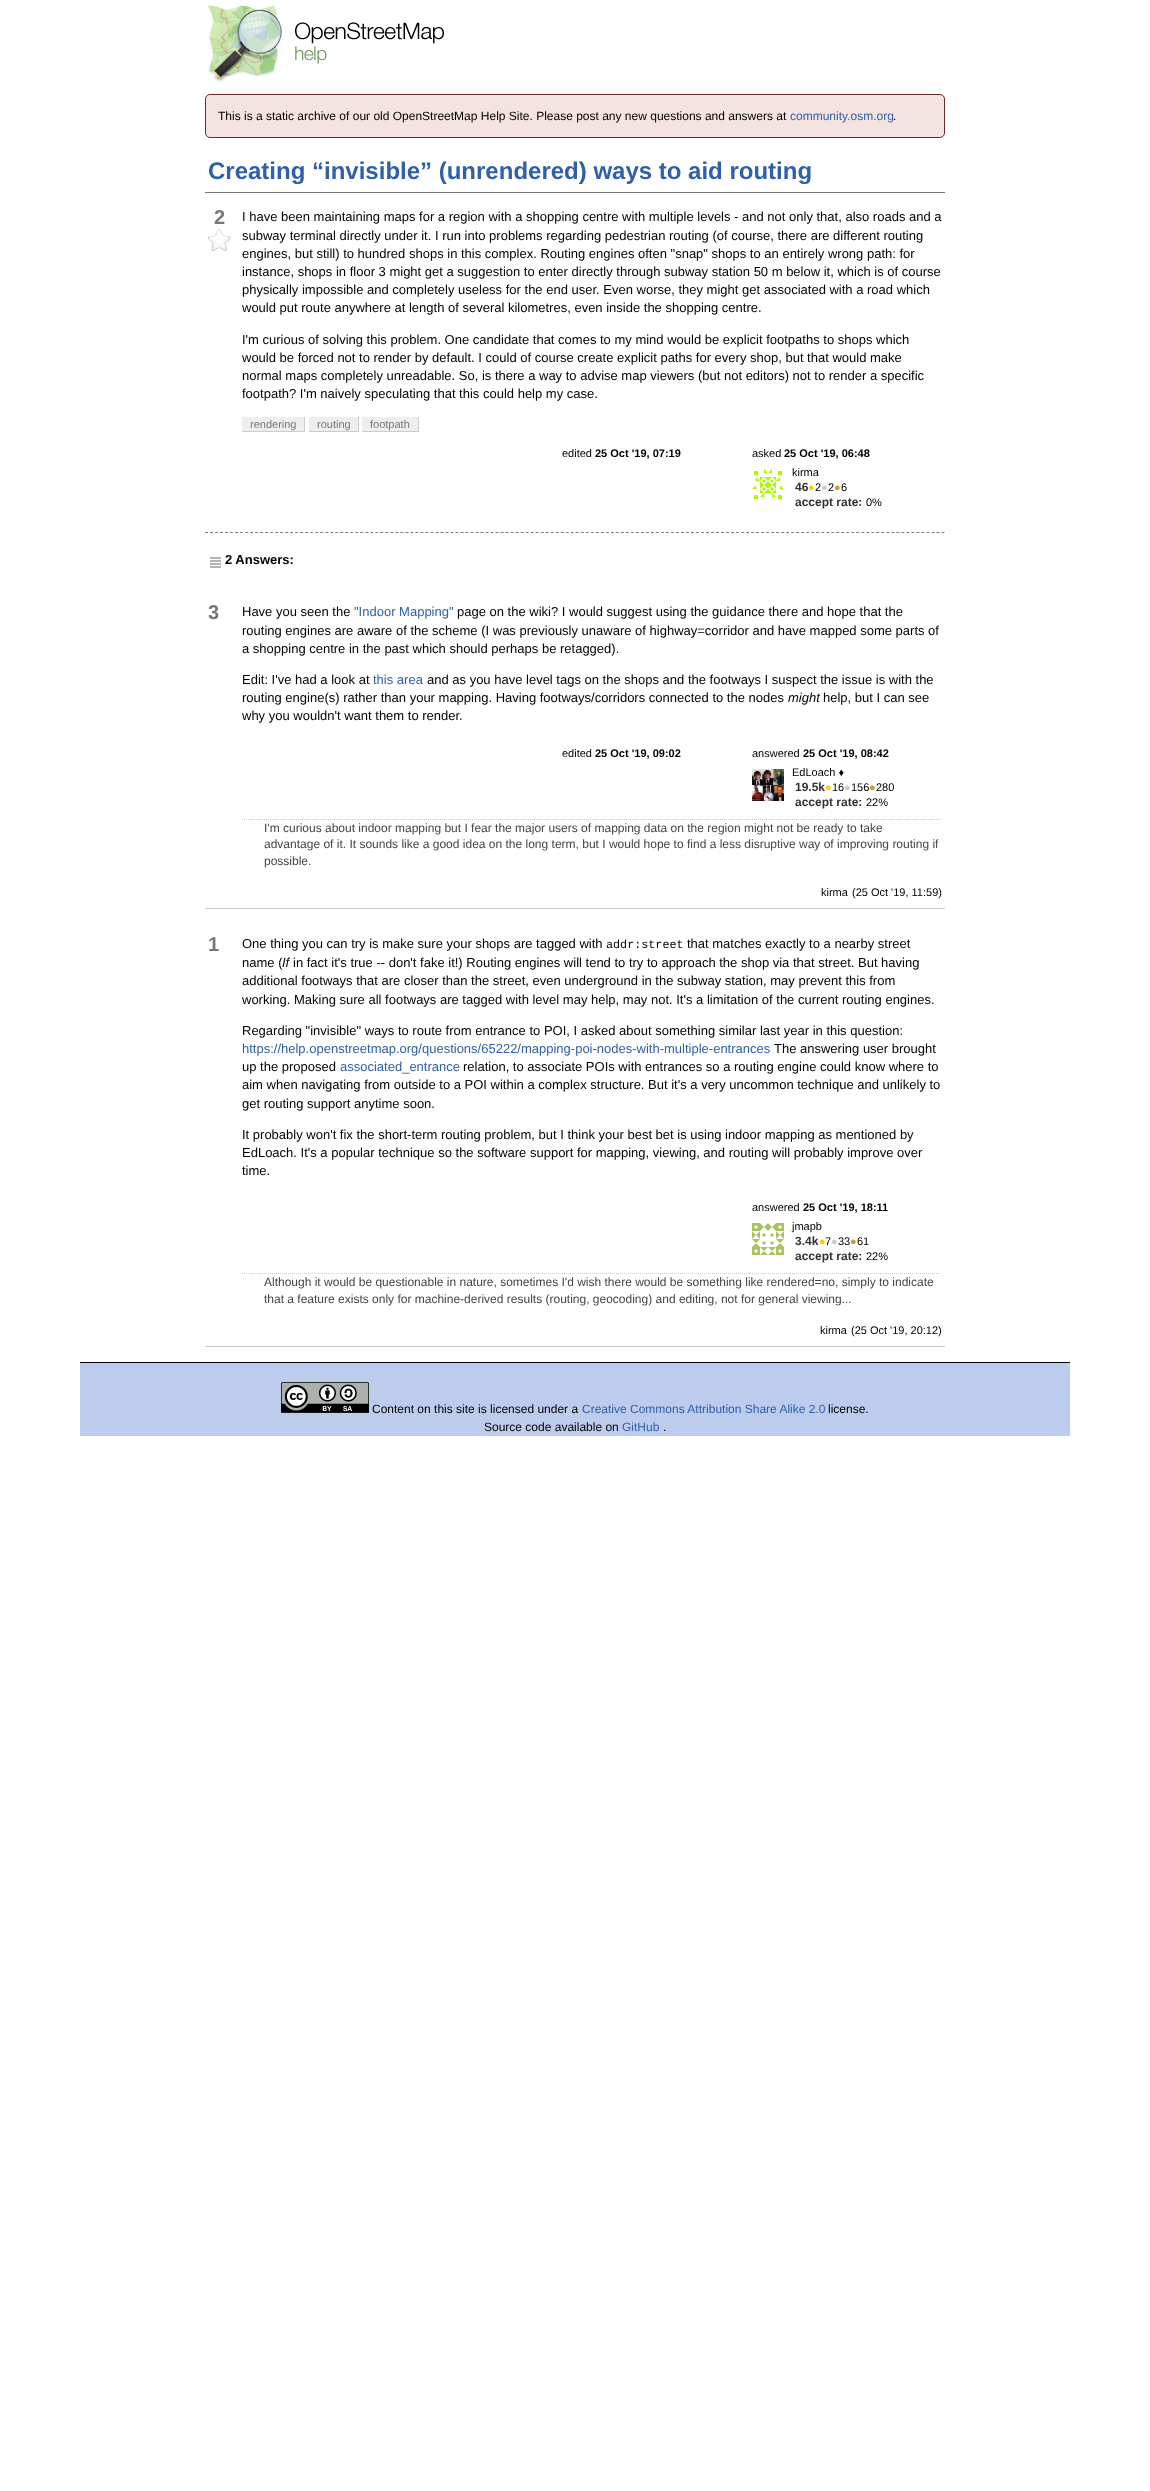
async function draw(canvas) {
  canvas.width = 1150
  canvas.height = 2491
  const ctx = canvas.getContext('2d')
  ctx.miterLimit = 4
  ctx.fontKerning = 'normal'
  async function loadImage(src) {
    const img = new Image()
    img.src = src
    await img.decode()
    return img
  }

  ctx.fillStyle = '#fff'
  ctx.fillRect(0, 0, 1150, 2491)
  ctx.drawImage(await loadImage('image0.png'), 208, 5, 236, 77)
  ctx.fillStyle = '#f3e3e1'
  ctx.beginPath()
  ctx.roundRect(205.5, 94.5, 739, 43, 4.5)
  ctx.fill()
  ctx.strokeStyle = '#6b2b28'
  ctx.stroke()
  ctx.font = '12px Liberation Sans'
  ctx.fillStyle = '#000'
  ctx.fillText('This is a static archive of our old OpenStreetMap Help Site. Please post any new questions and answers at', 218, 120)
  ctx.fillStyle = '#3060a8'
  ctx.fillText('community.osm.org', 790, 120)
  ctx.fillStyle = '#000'
  ctx.fillText('.', 893, 120)
  ctx.fillStyle = '#777'
  ctx.fillRect(205, 192, 740, 1)
  ctx.font = 'bold 24px Liberation Sans'
  ctx.fillStyle = '#3060a8'
  ctx.fillText('Creating “invisible” (unrendered) ways to aid routing', 208, 179)
  ctx.font = 'bold 20px Liberation Sans'
  ctx.fillStyle = '#777'
  ctx.fillText('2', 214, 224)
  ctx.drawImage(await loadImage('image1.png'), 208, 229, 23, 22)
  ctx.font = '13px Liberation Sans'
  ctx.fillStyle = '#000'
  ctx.fillText('I have been maintaining maps for a region with a shopping centre with multiple levels - and not only that, also roads and a', 242, 221)
  ctx.fillText('subway terminal directly under it. I run into problems regarding pedestrian routing (of course, there are different routing', 242, 240)
  ctx.fillText('engines, but still) to hundred shops in this complex. Routing engines often "snap" shops to an entirely wrong path: for', 242, 258)
  ctx.fillText('instance, shops in floor 3 might get a suggestion to enter directly through subway station 50 m below it, which is of course', 242, 276)
  ctx.fillText('physically impossible and completely useless for the end user. Even worse, they might get associated with a road which', 242, 294)
  ctx.fillText('would put route anywhere at length of several kilometres, even inside the shopping centre.', 242, 312)
  ctx.fillText('I\'m curious of solving this problem. One candidate that comes to my mind would be explicit footpaths to shops which', 242, 344)
  ctx.fillText('would be forced not to render by default. I could of course create explicit paths for every shop, but that would make', 242, 362)
  ctx.fillText('normal maps completely unreadable. So, is there a way to advise map viewers (but not editors) not to render a specific', 242, 380)
  ctx.fillText('footpath? I\'m naively speculating that this could help my case.', 242, 398)
  ctx.fillStyle = '#eee'
  ctx.fillRect(242, 417, 62, 14)
  ctx.font = '11px Liberation Sans'
  ctx.fillStyle = '#777'
  ctx.fillText('rendering', 250, 428)
  ctx.fillStyle = '#ccc'
  ctx.fillRect(304, 417, 1, 15)
  ctx.fillRect(242, 431, 63, 1)
  ctx.fillStyle = '#eee'
  ctx.fillRect(309, 417, 49, 14)
  ctx.fillStyle = '#777'
  ctx.fillText('routing', 317, 428)
  ctx.fillStyle = '#ccc'
  ctx.fillRect(358, 417, 1, 15)
  ctx.fillRect(309, 431, 50, 1)
  ctx.fillStyle = '#eee'
  ctx.fillRect(362, 417, 56, 14)
  ctx.fillStyle = '#777'
  ctx.fillText('footpath', 370, 428)
  ctx.fillStyle = '#ccc'
  ctx.fillRect(418, 417, 1, 15)
  ctx.fillRect(362, 431, 57, 1)
  ctx.fillStyle = '#000'
  ctx.fillText('edited', 562, 457)
  ctx.font = 'bold 11px Liberation Sans'
  ctx.fillText('25 Oct \'19, 07:19', 595, 457)
  ctx.font = '11px Liberation Sans'
  ctx.fillText('asked', 752, 457)
  ctx.font = 'bold 11px Liberation Sans'
  ctx.fillText('25 Oct \'19, 06:48', 784, 457)
  ctx.drawImage(await loadImage('image2.png'), 752, 469, 32, 31)
  ctx.font = '11px Liberation Sans'
  ctx.fillText('kirma', 792, 476)
  ctx.font = 'bold 12px Liberation Sans'
  ctx.fillStyle = '#333'
  ctx.fillText('46', 795, 491)
  ctx.font = '11px Liberation Sans'
  ctx.fillStyle = '#fc0'
  ctx.fillText('●', 808, 491)
  ctx.fillStyle = '#000'
  ctx.fillText('2', 815, 491)
  ctx.fillStyle = '#ccc'
  ctx.fillText('●', 821, 491)
  ctx.fillStyle = '#000'
  ctx.fillText('2', 828, 491)
  ctx.fillStyle = '#c93'
  ctx.fillText('●', 834, 491)
  ctx.fillStyle = '#000'
  ctx.fillText('6', 841, 491)
  ctx.font = 'bold 12px Liberation Sans'
  ctx.fillStyle = '#333'
  ctx.fillText('accept rate:', 795, 506)
  ctx.font = '11px Liberation Sans'
  ctx.fillStyle = '#000'
  ctx.fillText('0%', 866, 506)
  ctx.beginPath()
  ctx.moveTo(205, 532.5)
  ctx.lineTo(945, 532.5)
  ctx.strokeStyle = '#808080'
  ctx.setLineDash([3, 2.01])
  ctx.stroke()
  ctx.drawImage(await loadImage('image3.png'), 210, 557, 11, 11)
  ctx.font = 'bold 13px Liberation Sans'
  ctx.fillText('2 Answers:', 225, 564)
  ctx.fillStyle = '#ccccce'
  ctx.fillRect(205, 908, 740, 1)
  ctx.font = 'bold 20px Liberation Sans'
  ctx.fillStyle = '#777'
  ctx.fillText('3', 208, 619)
  ctx.font = '13px Liberation Sans'
  ctx.fillStyle = '#000'
  ctx.fillText('Have you seen the', 242, 616)
  ctx.fillStyle = '#3060a8'
  ctx.fillText('"Indoor Mapping"', 354, 616)
  ctx.fillStyle = '#000'
  ctx.fillText('page on the wiki? I would suggest using the guidance there and hope that the', 457, 616)
  ctx.fillText('routing engines are aware of the scheme (I was previously unaware of highway=corridor and have mapped some parts of', 242, 635)
  ctx.fillText('a shopping centre in the past which should perhaps be retagged).', 242, 653)
  ctx.fillText('Edit: I\'ve had a look at', 242, 684)
  ctx.fillStyle = '#3060a8'
  ctx.fillText('this area', 373, 684)
  ctx.fillStyle = '#000'
  ctx.fillText('and as you have level tags on the shops and the footways I suspect the issue is with the', 427, 684)
  ctx.fillText('routing engine(s) rather than your mapping. Having footways/corridors connected to the nodes', 242, 702)
  ctx.font = 'italic 13px Liberation Sans'
  ctx.fillText('might', 788, 702)
  ctx.font = '13px Liberation Sans'
  ctx.fillText('help, but I can see', 823, 702)
  ctx.fillText('why you wouldn\'t want them to render.', 242, 720)
  ctx.font = '11px Liberation Sans'
  ctx.fillText('edited', 562, 757)
  ctx.font = 'bold 11px Liberation Sans'
  ctx.fillText('25 Oct \'19, 09:02', 595, 757)
  ctx.font = '11px Liberation Sans'
  ctx.fillText('answered', 752, 757)
  ctx.font = 'bold 11px Liberation Sans'
  ctx.fillText('25 Oct \'19, 08:42', 803, 757)
  ctx.drawImage(await loadImage('image4.png'), 752, 769, 32, 32)
  ctx.font = '11px Liberation Sans'
  ctx.fillText('EdLoach ♦', 792, 776)
  ctx.font = 'bold 12px Liberation Sans'
  ctx.fillStyle = '#333'
  ctx.fillText('19.5k', 795, 791)
  ctx.font = '11px Liberation Sans'
  ctx.fillStyle = '#fc0'
  ctx.fillText('●', 825, 791)
  ctx.fillStyle = '#000'
  ctx.fillText('16', 832, 791)
  ctx.fillStyle = '#ccc'
  ctx.fillText('●', 844, 791)
  ctx.fillStyle = '#000'
  ctx.fillText('156', 851, 791)
  ctx.fillStyle = '#c93'
  ctx.fillText('●', 869, 791)
  ctx.fillStyle = '#000'
  ctx.fillText('280', 876, 791)
  ctx.font = 'bold 12px Liberation Sans'
  ctx.fillStyle = '#333'
  ctx.fillText('accept rate:', 795, 806)
  ctx.font = '11px Liberation Sans'
  ctx.fillStyle = '#000'
  ctx.fillText('22%', 866, 806)
  ctx.beginPath()
  ctx.moveTo(242, 819.5)
  ctx.lineTo(942, 819.5)
  ctx.strokeStyle = '#ccccce'
  ctx.setLineDash([1, 1])
  ctx.stroke()
  ctx.font = '12px Liberation Sans'
  ctx.fillStyle = '#444'
  ctx.fillText('I\'m curious about indoor mapping but I fear the major users of mapping data on the region might not be ready to take', 264, 832)
  ctx.fillText('advantage of it. It sounds like a good idea on the long term, but I would hope to find a less disruptive way of improving routing if', 264, 848)
  ctx.fillText('possible.', 264, 865)
  ctx.font = '11px Liberation Sans'
  ctx.fillStyle = '#000'
  ctx.fillText('kirma', 821, 896)
  ctx.fillText('(25 Oct \'19, 11:59)', 852, 896)
  ctx.fillStyle = '#ccccce'
  ctx.fillRect(205, 1346, 740, 1)
  ctx.font = 'bold 20px Liberation Sans'
  ctx.fillStyle = '#777'
  ctx.fillText('1', 208, 951)
  ctx.font = '13px Liberation Sans'
  ctx.fillStyle = '#000'
  ctx.fillText('One thing you can try is make sure your shops are tagged with', 242, 948)
  ctx.font = '11.75px Liberation Mono'
  ctx.fillText('addr:street', 606, 948)
  ctx.font = '13px Liberation Sans'
  ctx.fillText('that matches exactly to a nearby street', 687, 948)
  ctx.fillText('name (', 242, 967)
  ctx.font = 'italic 13px Liberation Sans'
  ctx.fillText('If', 282, 967)
  ctx.font = '13px Liberation Sans'
  ctx.fillText('in fact it\'s true -- don\'t fake it!) Routing engines will tend to try to approach the shop via that street. But having', 293, 967)
  ctx.fillText('additional footways that are closer than the street, even underground in the subway station, may prevent this from', 242, 985)
  ctx.fillText('working. Making sure all footways are tagged with level may help, may not. It\'s a limitation of the current routing engines.', 242, 1004)
  ctx.fillText('Regarding "invisible" ways to route from entrance to POI, I asked about something similar last year in this question:', 242, 1035)
  ctx.fillStyle = '#3060a8'
  ctx.fillText('https://help.openstreetmap.org/questions/65222/mapping-poi-nodes-with-multiple-entrances', 242, 1053)
  ctx.fillStyle = '#000'
  ctx.fillText('The answering user brought', 774, 1053)
  ctx.fillText('up the proposed', 242, 1071)
  ctx.fillStyle = '#3060a8'
  ctx.fillText('associated_entrance', 340, 1071)
  ctx.fillStyle = '#000'
  ctx.fillText('relation, to associate POIs with entrances so a routing engine could know where to', 463, 1071)
  ctx.fillText('aim when navigating from outside to a POI within a complex structure. But it\'s a very uncommon technique and unlikely to', 242, 1089)
  ctx.fillText('get routing support anytime soon.', 242, 1108)
  ctx.fillText('It probably won\'t fix the short-term routing problem, but I think your best bet is using indoor mapping as mentioned by', 242, 1139)
  ctx.fillText('EdLoach. It\'s a popular technique so the software support for mapping, viewing, and routing will probably improve over', 242, 1157)
  ctx.fillText('time.', 242, 1175)
  ctx.font = '11px Liberation Sans'
  ctx.fillText('answered', 752, 1211)
  ctx.font = 'bold 11px Liberation Sans'
  ctx.fillText('25 Oct \'19, 18:11', 803, 1211)
  ctx.drawImage(await loadImage('image5.png'), 752, 1223, 32, 32)
  ctx.font = '11px Liberation Sans'
  ctx.fillText('jmapb', 792, 1230)
  ctx.font = 'bold 12px Liberation Sans'
  ctx.fillStyle = '#333'
  ctx.fillText('3.4k', 795, 1245)
  ctx.font = '11px Liberation Sans'
  ctx.fillStyle = '#fc0'
  ctx.fillText('●', 819, 1245)
  ctx.fillStyle = '#000'
  ctx.fillText('7', 825, 1245)
  ctx.fillStyle = '#ccc'
  ctx.fillText('●', 831, 1245)
  ctx.fillStyle = '#000'
  ctx.fillText('33', 838, 1245)
  ctx.fillStyle = '#c93'
  ctx.fillText('●', 850, 1245)
  ctx.fillStyle = '#000'
  ctx.fillText('61', 857, 1245)
  ctx.font = 'bold 12px Liberation Sans'
  ctx.fillStyle = '#333'
  ctx.fillText('accept rate:', 795, 1260)
  ctx.font = '11px Liberation Sans'
  ctx.fillStyle = '#000'
  ctx.fillText('22%', 866, 1260)
  ctx.beginPath()
  ctx.moveTo(242, 1273.5)
  ctx.lineTo(942, 1273.5)
  ctx.stroke()
  ctx.font = '12px Liberation Sans'
  ctx.fillStyle = '#444'
  ctx.fillText('Although it would be questionable in nature, sometimes I\'d wish there would be something like rendered=no, simply to indicate', 264, 1286)
  ctx.fillText('that a feature exists only for machine-derived results (routing, geocoding) and editing, not for general viewing...', 264, 1303)
  ctx.font = '11px Liberation Sans'
  ctx.fillStyle = '#000'
  ctx.fillText('kirma', 820, 1334)
  ctx.fillText('(25 Oct \'19, 20:12)', 851, 1334)
  ctx.fillStyle = '#bdcced'
  ctx.fillRect(80, 1363, 990, 73)
  ctx.fillStyle = '#000'
  ctx.fillRect(80, 1362, 990, 1)
  ctx.drawImage(await loadImage('image6.png'), 281, 1382, 88, 31)
  ctx.font = '12px Liberation Sans'
  ctx.fillText('Content on this site is licensed under a', 372, 1413)
  ctx.fillStyle = '#3060a8'
  ctx.fillText('Creative Commons Attribution Share Alike 2.0', 582, 1413)
  ctx.fillStyle = '#000'
  ctx.fillText('license.', 828, 1413)
  ctx.fillText('Source code available on', 484, 1431)
  ctx.fillStyle = '#3060a8'
  ctx.fillText('GitHub', 622, 1431)
  ctx.fillStyle = '#000'
  ctx.fillText('.', 663, 1431)
}

draw(document.querySelector('canvas'))
